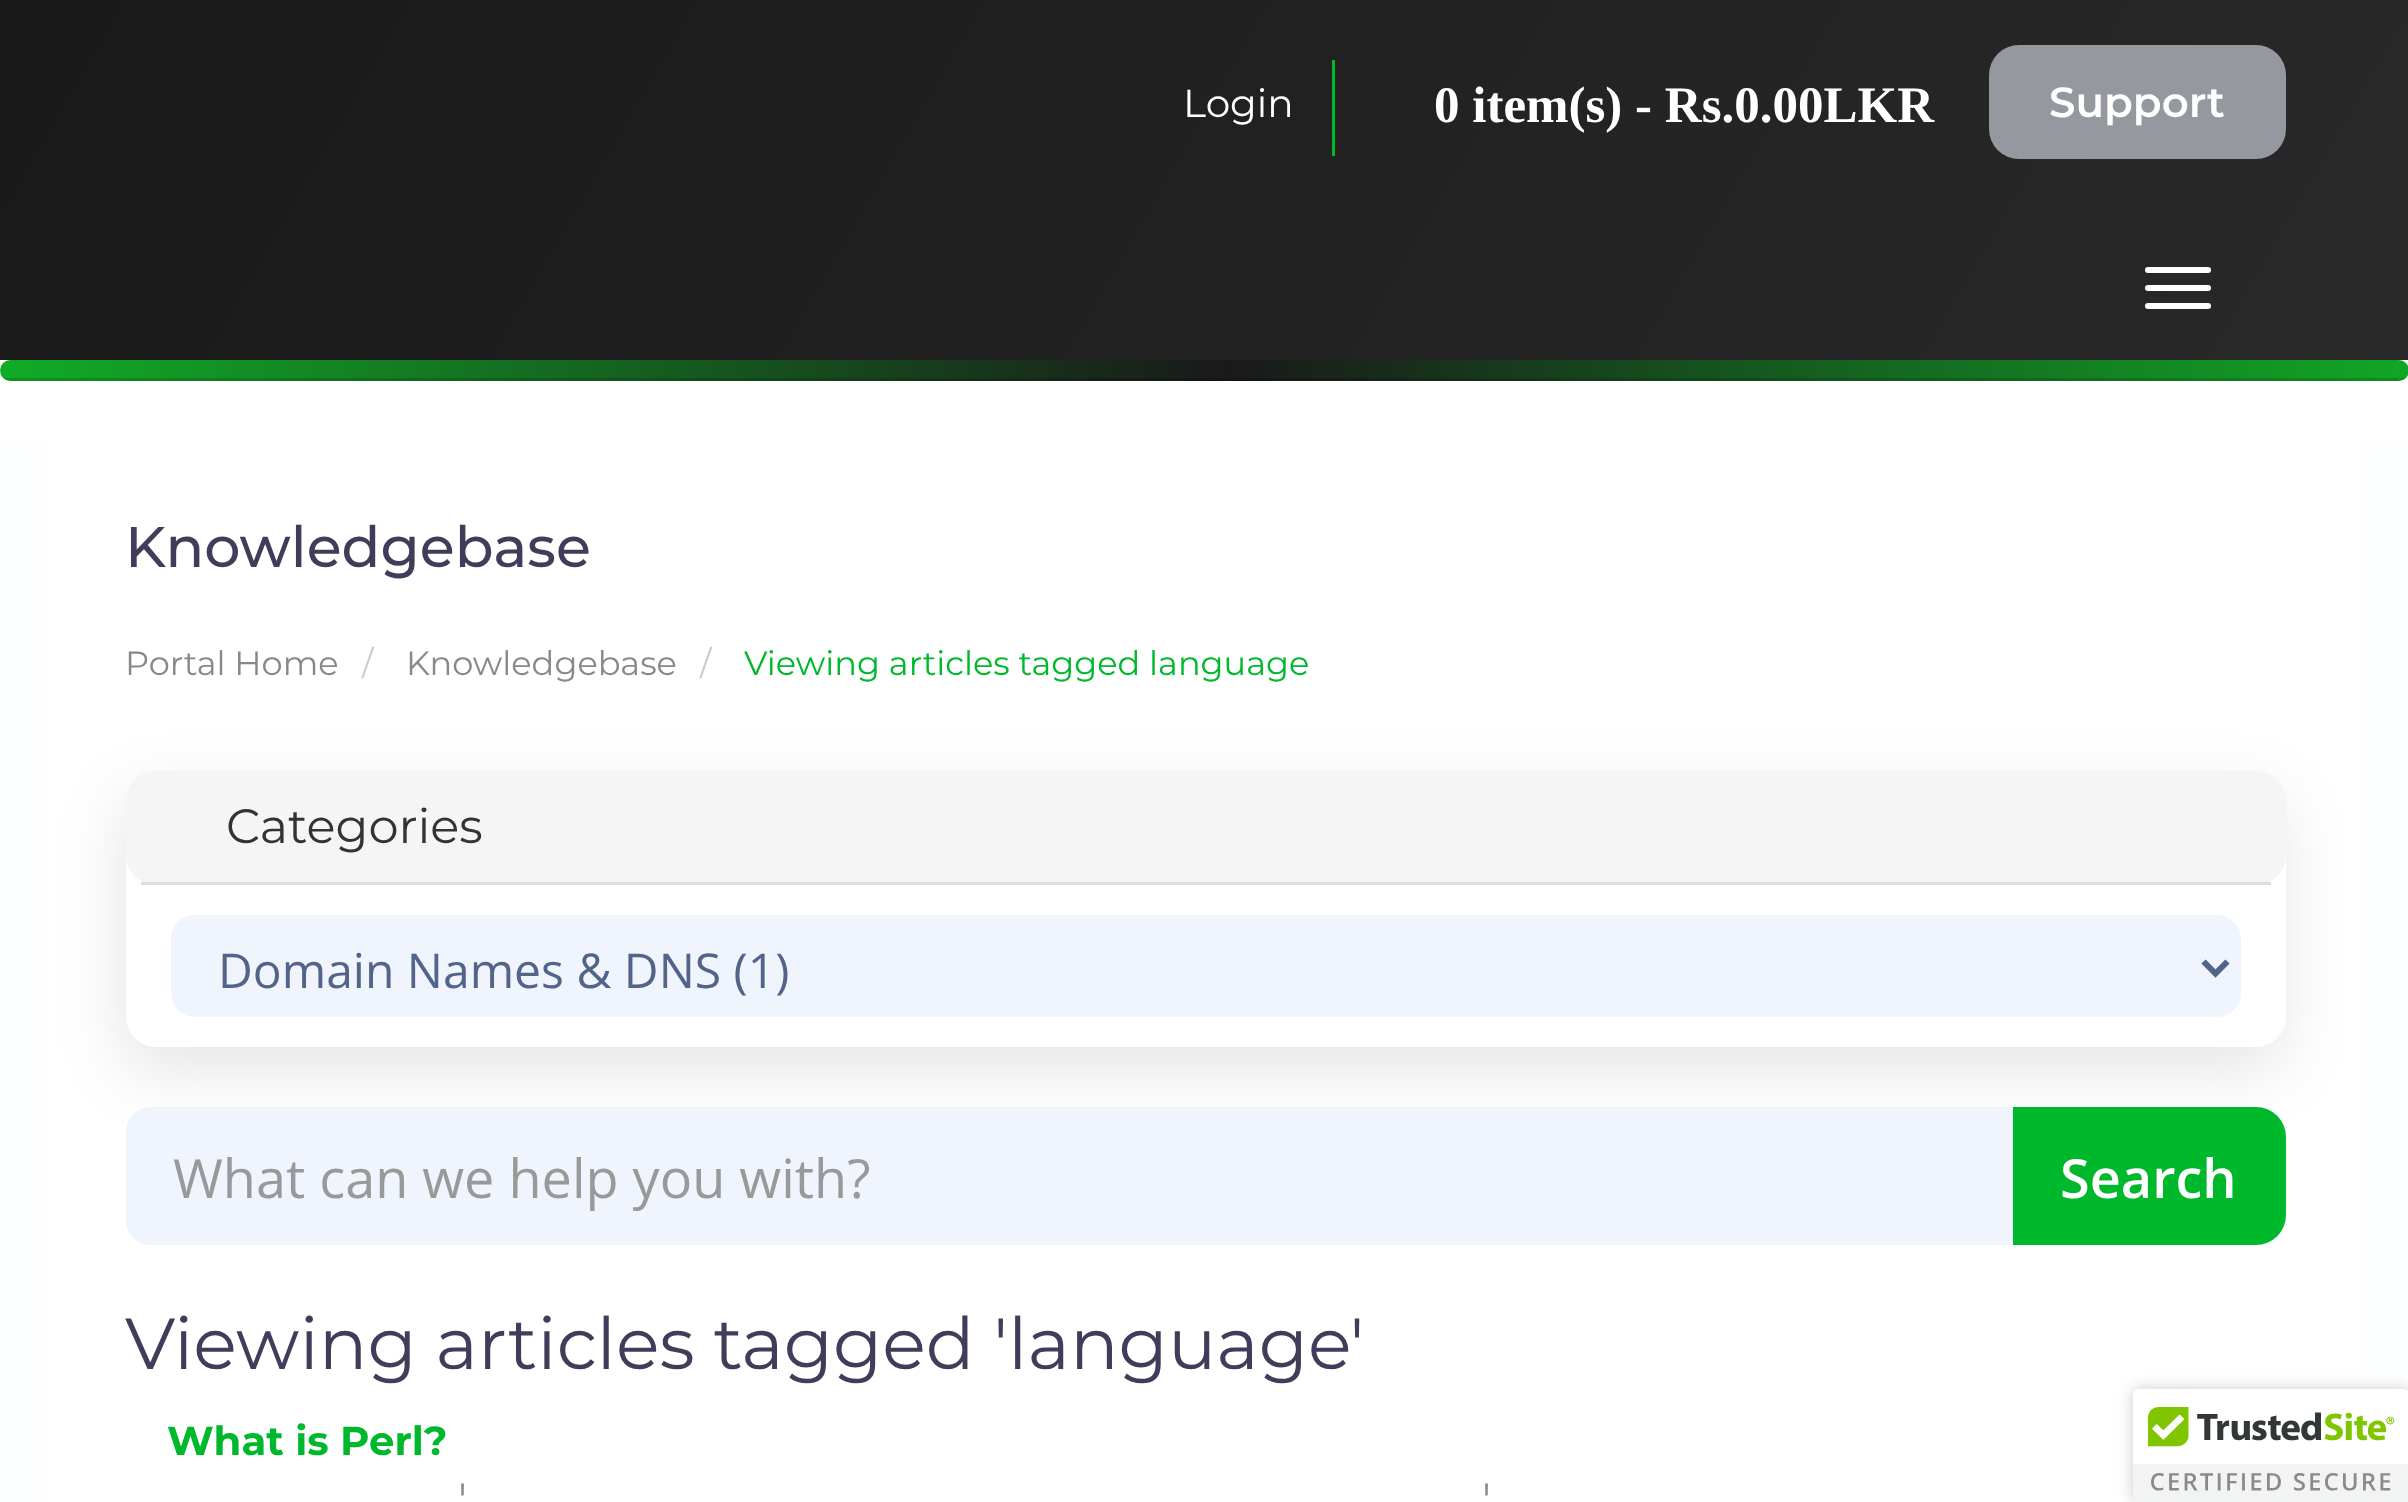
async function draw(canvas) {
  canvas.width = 2408
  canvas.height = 1502
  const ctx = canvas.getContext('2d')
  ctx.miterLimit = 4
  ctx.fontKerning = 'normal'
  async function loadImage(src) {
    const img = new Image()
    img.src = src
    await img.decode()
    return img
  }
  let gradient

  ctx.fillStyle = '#fff'
  ctx.fillRect(0, 0, 2408, 1502)
  gradient = ctx.createLinearGradient(223, -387, 2186, 747)
  gradient.addColorStop(0, '#191919')
  gradient.addColorStop(1, '#292929')
  ctx.fillStyle = gradient
  ctx.fillRect(0, 0, 2408, 360)
  ctx.font = '39px Montserrat'
  ctx.fillStyle = '#fff'
  ctx.fillText('Login', 1183, 117)
  ctx.fillStyle = '#00b82b'
  ctx.fillRect(1332, 60, 3, 96)
  ctx.font = 'bold 51px Liberation Serif'
  ctx.fillStyle = '#fff'
  ctx.fillText('0 item(s) - Rs.0.00LKR', 1434, 122)
  ctx.fillStyle = '#95989e'
  ctx.beginPath()
  ctx.roundRect(1989, 45, 297, 114, 30)
  ctx.fill()
  ctx.font = '600 42px Montserrat'
  ctx.fillStyle = '#fff'
  ctx.fillText('Support', 2049, 117)
  ctx.beginPath()
  ctx.roundRect(2145, 267, 66, 6, 3)
  ctx.fill()
  ctx.beginPath()
  ctx.roundRect(2145, 285, 66, 6, 3)
  ctx.fill()
  ctx.beginPath()
  ctx.roundRect(2145, 303, 66, 6, 3)
  ctx.fill()
  gradient = ctx.createLinearGradient(0, 371, 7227, 370)
  gradient.addColorStop(0, '#11ac27')
  gradient.addColorStop(0.17, '#191919')
  gradient.addColorStop(0.34, '#11ac27')
  gradient.addColorStop(0.51, '#191919')
  gradient.addColorStop(0.68, '#11ac27')
  gradient.addColorStop(0.85, '#191919')
  gradient.addColorStop(1, '#11ac27')
  ctx.fillStyle = gradient
  ctx.beginPath()
  ctx.roundRect(0, 360, 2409, 21, 10.5)
  ctx.fill()
  ctx.save()
  ctx.beginPath()
  ctx.roundRect(0, 360, 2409, 21, 10.5)
  ctx.clip()
  ctx.fillStyle = '#00000026'
  ctx.fillRect(0, 378, 2408, 3)
  ctx.restore()
  ctx.fillStyle = '#fcfeff'
  ctx.fillRect(0, 441, 2408, 1061)
  ctx.fillStyle = '#fff'
  ctx.fillRect(45, 441, 2319, 1061)
  ctx.font = '500 57px Montserrat'
  ctx.fillStyle = '#3f3d59'
  ctx.fillText('Knowledgebase', 125, 567)
  ctx.font = '33.6px Montserrat'
  ctx.fillStyle = '#888'
  ctx.fillText('Portal Home', 125, 675)
  ctx.fillStyle = '#ccc'
  ctx.fillText('/', 362, 675)
  ctx.fillStyle = '#888'
  ctx.fillText('Knowledgebase', 406, 675)
  ctx.fillStyle = '#ccc'
  ctx.fillText('/', 700, 675)
  ctx.fillStyle = '#00b82b'
  ctx.fillText('Viewing articles tagged language', 744, 675)
  ctx.fillStyle = '#0000001a'
  ctx.filter = 'blur(33px)'
  ctx.beginPath()
  ctx.roundRect(123, 795, 2160, 276, 30)
  ctx.fill()
  ctx.filter = 'none'
  ctx.fillStyle = '#fff'
  ctx.beginPath()
  ctx.roundRect(126, 771, 2160, 276, 30)
  ctx.fill()
  ctx.fillStyle = '#f5f5f5'
  ctx.beginPath()
  ctx.roundRect(126, 771, 2160, 114, 30)
  ctx.fill()
  ctx.fillStyle = '#ddd'
  ctx.fillRect(141, 882, 2130, 3)
  ctx.font = '48px Montserrat'
  ctx.fillStyle = '#333'
  ctx.fillText('Categories', 226, 843)
  ctx.fillStyle = '#f0f4fd'
  ctx.beginPath()
  ctx.roundRect(171, 915, 2070, 102, 24)
  ctx.fill()
  ctx.beginPath()
  ctx.moveTo(2203.5, 961.5)
  ctx.lineTo(2215.5, 973.5)
  ctx.lineTo(2227.5, 961.5)
  ctx.strokeStyle = '#526489'
  ctx.lineWidth = 6
  ctx.stroke()
  ctx.font = '48px Open Sans'
  ctx.fillStyle = '#526489'
  ctx.fillText('Domain Names & DNS (1)', 218, 988)
  ctx.fillStyle = '#f0f4fd'
  ctx.beginPath()
  ctx.roundRect(126, 1107, 1890, 138, [24, 0, 0, 24])
  ctx.fill()
  ctx.save()
  ctx.beginPath()
  ctx.rect(174, 1140, 1794, 72)
  ctx.clip()
  ctx.font = '54px Open Sans'
  ctx.fillStyle = '#999'
  ctx.fillText('What can we help you with?', 173, 1198)
  ctx.restore()
  ctx.fillStyle = '#00b82b'
  ctx.beginPath()
  ctx.roundRect(2013, 1107, 273, 138, [0, 30, 30, 0])
  ctx.fill()
  ctx.font = '600 54px Open Sans'
  ctx.fillStyle = '#fff'
  ctx.fillText('Search', 2060, 1198)
  ctx.font = '72px Montserrat'
  ctx.fillStyle = '#3f3d59'
  ctx.fillText('Viewing articles tagged \'language\'', 125, 1369)
  ctx.font = 'bold 40.25px Montserrat'
  ctx.fillStyle = '#00b82b'
  ctx.fillText('What is Perl?', 167, 1455)
  ctx.font = '45px Montserrat'
  ctx.fillStyle = '#828e98'
  ctx.fillText('\'', 458, 1515)
  ctx.fillText('\'', 1482, 1515)
  ctx.fillStyle = '#00000033'
  ctx.filter = 'blur(7.5px)'
  ctx.beginPath()
  ctx.roundRect(2133, 1389, 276, 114, 6)
  ctx.fill()
  ctx.filter = 'none'
  ctx.fillStyle = '#fff'
  ctx.beginPath()
  ctx.moveTo(2139, 1389)
  ctx.lineTo(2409, 1389)
  ctx.lineTo(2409, 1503)
  ctx.lineTo(2133, 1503)
  ctx.lineTo(2133, 1395)
  ctx.bezierCurveTo(2133, 1391.5, 2135.5, 1389, 2139, 1389)
  ctx.closePath()
  ctx.fill()
  ctx.drawImage(await loadImage('image0.png'), 2133, 1389, 275, 113)
}

draw(document.querySelector('canvas'))
